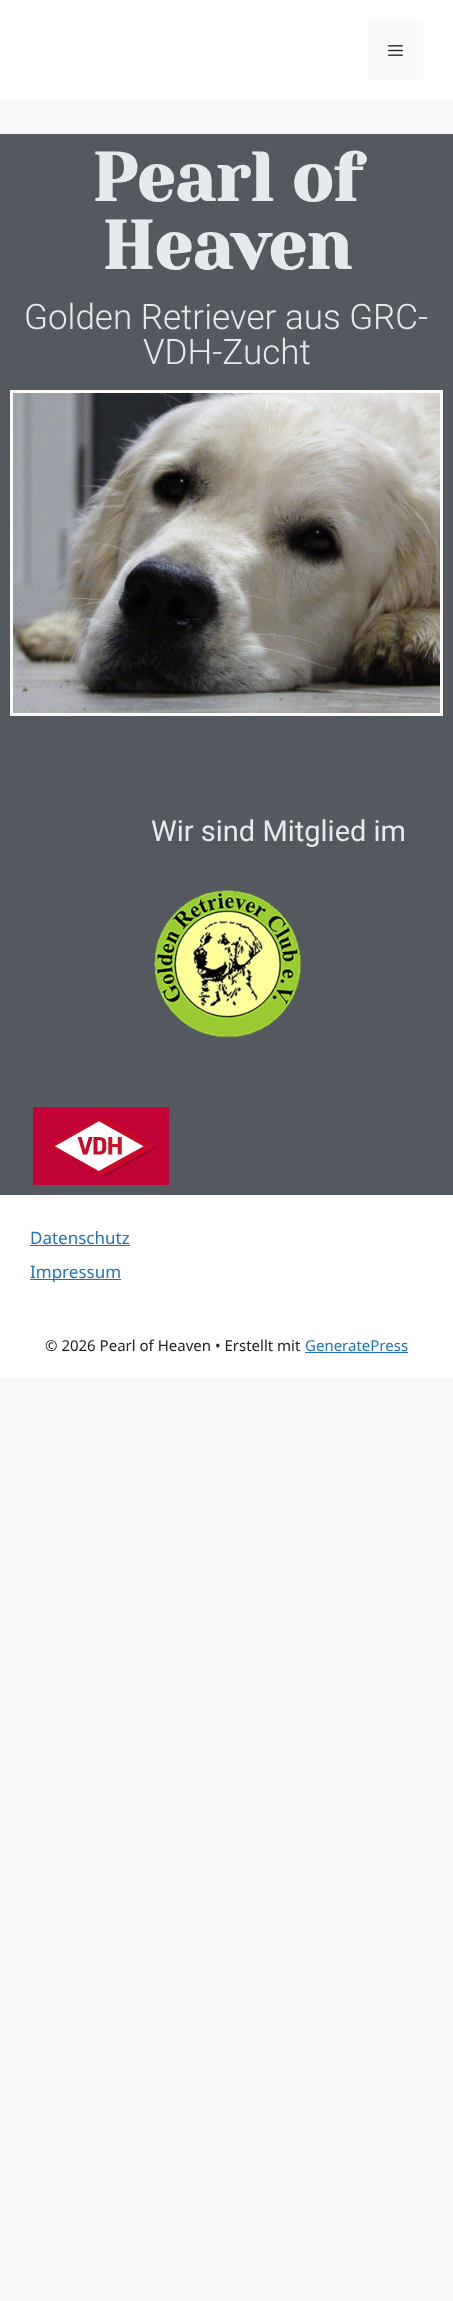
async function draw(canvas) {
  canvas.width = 453
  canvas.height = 2301
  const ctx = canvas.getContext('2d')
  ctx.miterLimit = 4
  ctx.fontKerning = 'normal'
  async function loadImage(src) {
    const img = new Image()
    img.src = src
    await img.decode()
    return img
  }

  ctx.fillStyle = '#f7f8f9'
  ctx.fillRect(0, 0, 453, 2301)
  ctx.fillStyle = '#fff'
  ctx.fillRect(0, 0, 453, 100)
  ctx.fillStyle = '#fafafa'
  ctx.fillRect(368, 20, 55, 60)
  ctx.drawImage(await loadImage('image0.png'), 388, 45, 15, 11)
  ctx.fillStyle = '#54595f'
  ctx.fillRect(0, 134, 453, 1061)
  ctx.font = 'bold 68px Yeseva One'
  ctx.fillStyle = '#e6eaec'
  ctx.fillText('Pearl of', 92, 201)
  ctx.fillText('Heaven', 102, 269)
  ctx.font = '300 35px Roboto'
  ctx.fillText('Golden Retriever aus GRC-', 24, 329)
  ctx.fillText('VDH-Zucht', 143, 364)
  ctx.strokeStyle = '#fcf9f9'
  ctx.lineWidth = 3
  ctx.strokeRect(11.5, 391.5, 430, 323)
  ctx.drawImage(await loadImage('image1.png'), 13, 393, 427, 320)
  ctx.font = '29px Roboto'
  ctx.fillText('Wir sind Mitglied im', 151, 841)
  ctx.drawImage(await loadImage('image2.png'), 153, 889, 149, 149)
  ctx.drawImage(await loadImage('image3.png'), 33, 1107, 136, 78)
  ctx.fillStyle = '#fff'
  ctx.fillRect(0, 1195, 453, 182)
  ctx.font = '17px Noto Sans'
  ctx.fillStyle = '#1e73be'
  ctx.fillText('Datenschutz', 30, 1244)
  ctx.fillRect(30, 1245, 100, 1)
  ctx.fillRect(30, 1279, 91, 1)
  ctx.fillText('Impressum', 30, 1278)
  ctx.font = '15px Noto Sans'
  ctx.fillStyle = '#222'
  ctx.fillText('© 2026 Pearl of Heaven • Erstellt mit', 45, 1351)
  ctx.fillStyle = '#1e73be'
  ctx.fillText('GeneratePress', 305, 1351)
  ctx.fillRect(305, 1352, 103, 1)
}

draw(document.querySelector('canvas'))
